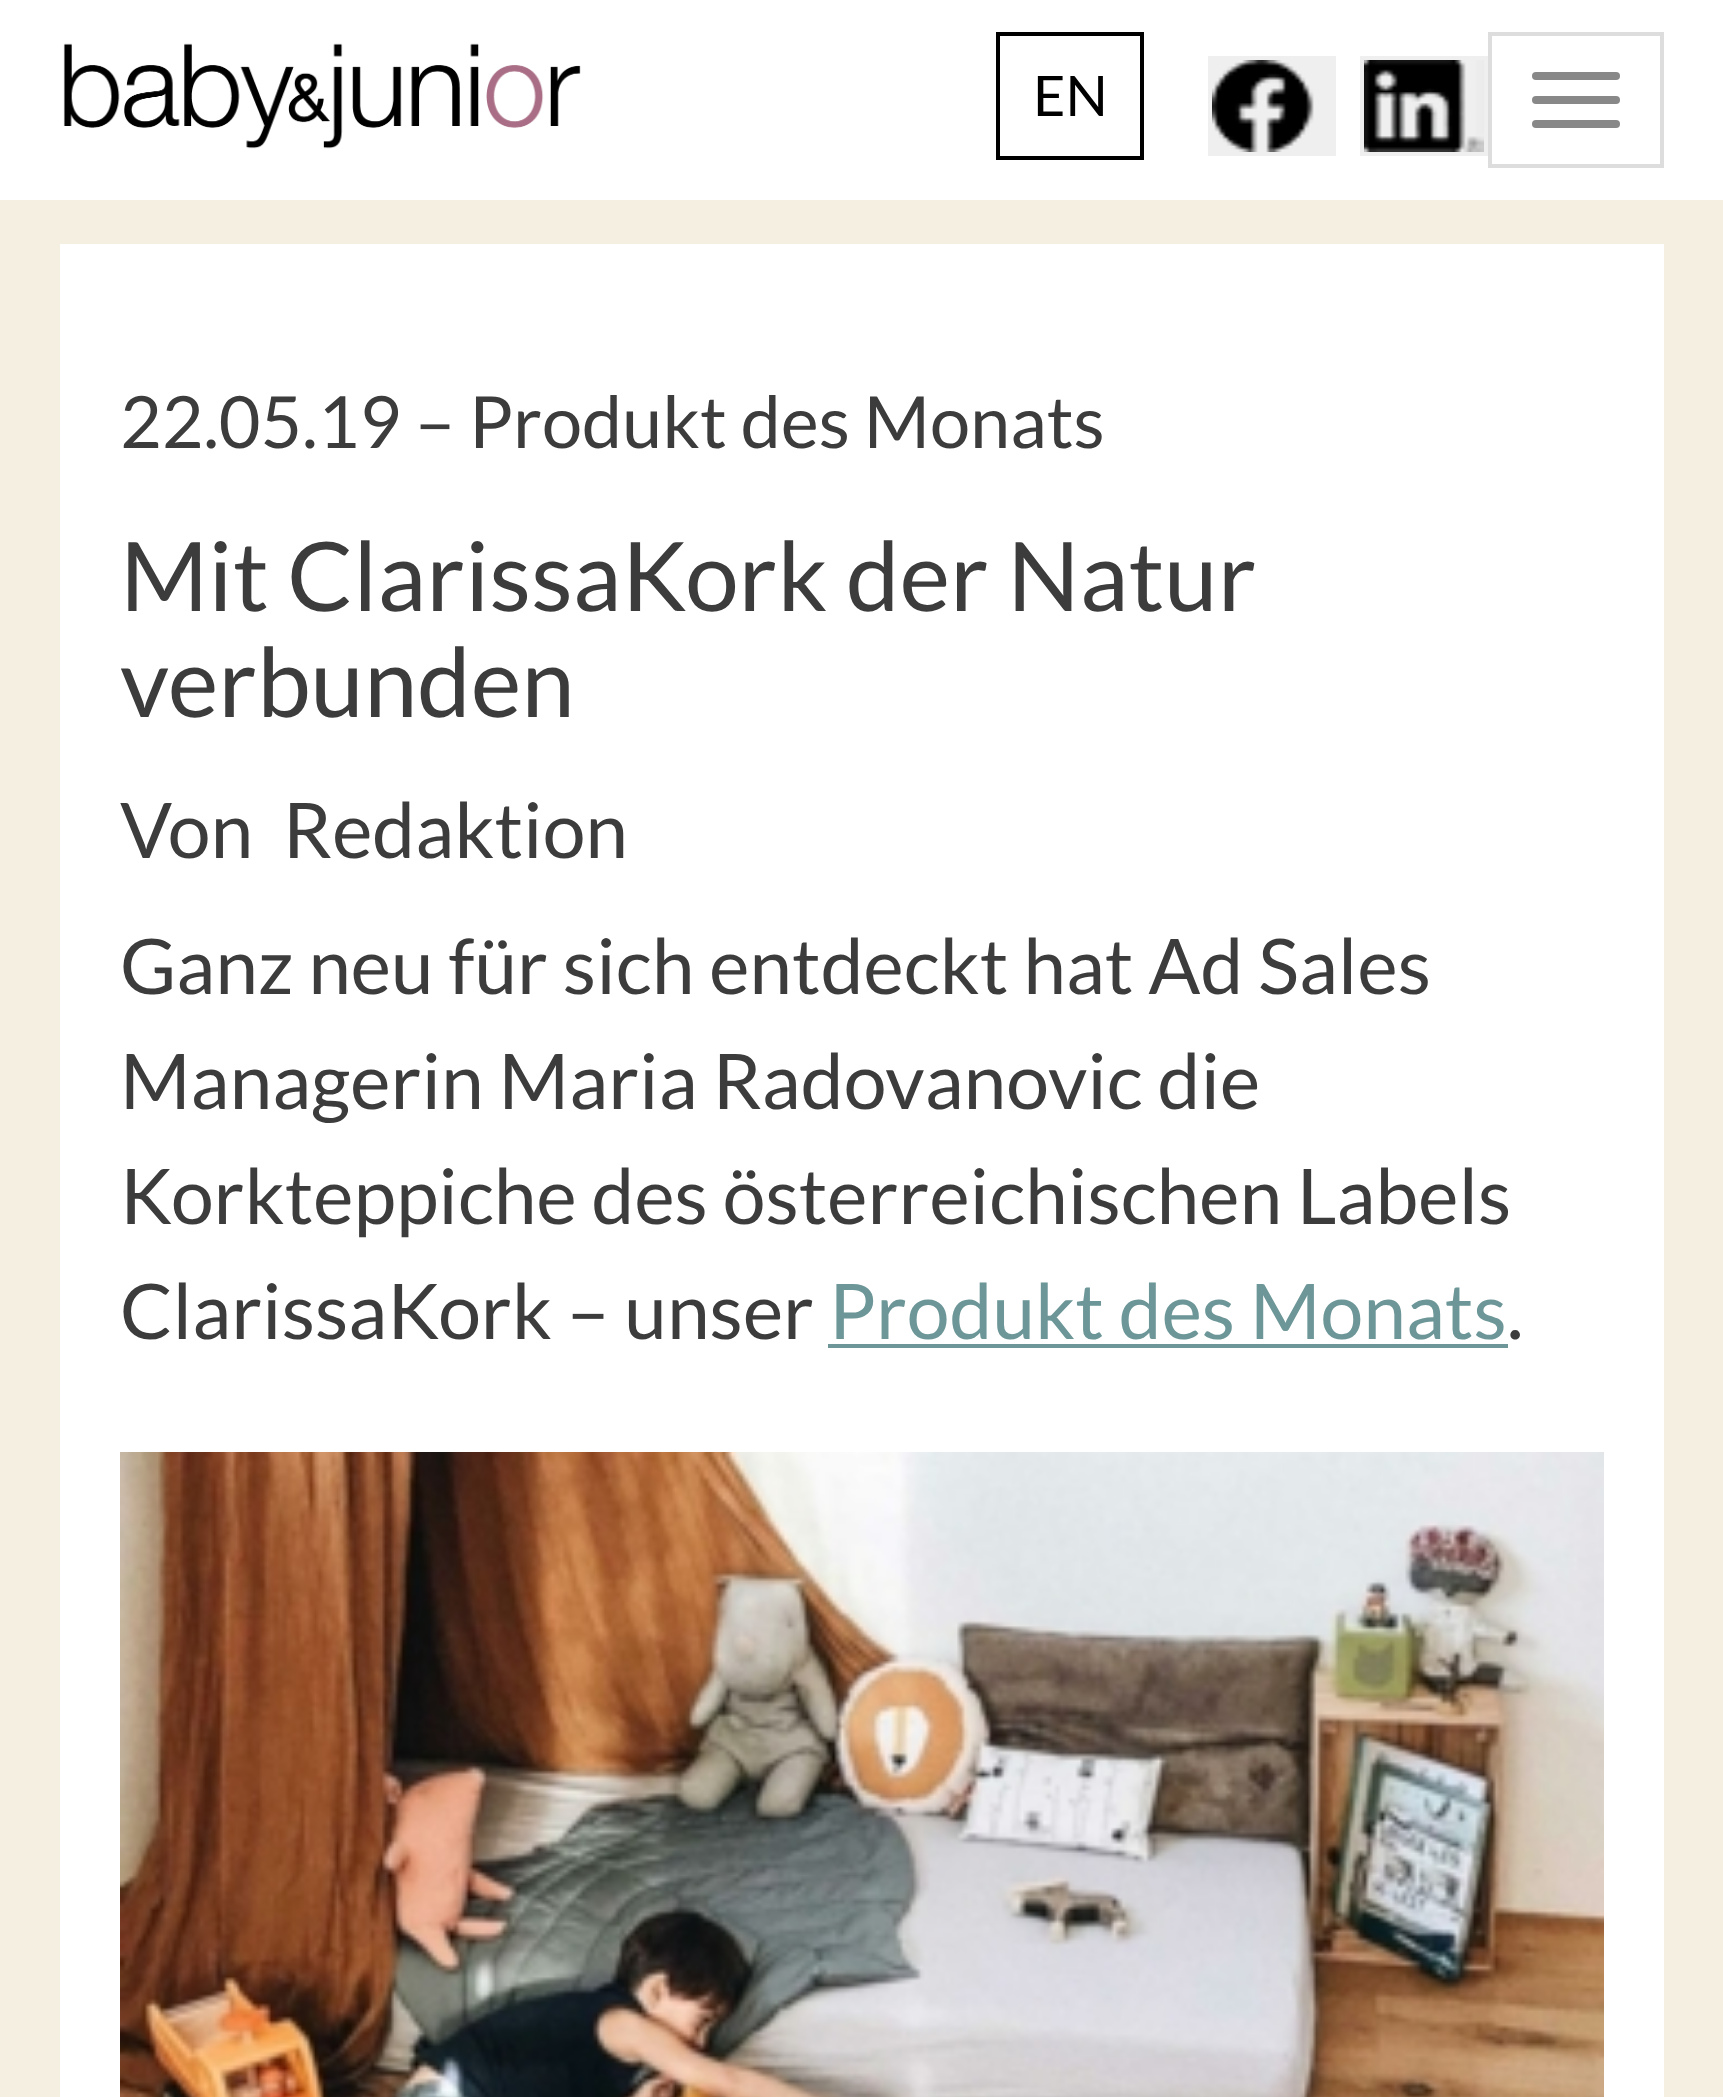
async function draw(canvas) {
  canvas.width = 1723
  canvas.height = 2097
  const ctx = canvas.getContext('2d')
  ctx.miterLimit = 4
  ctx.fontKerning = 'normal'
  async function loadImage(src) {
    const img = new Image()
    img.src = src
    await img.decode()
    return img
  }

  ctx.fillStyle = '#f4efe0'
  ctx.fillRect(0, 0, 1723, 2097)
  ctx.fillStyle = '#fff'
  ctx.fillRect(0, 0, 1723, 200)
  ctx.drawImage(await loadImage('image0.png'), 63, 43, 518, 106)
  ctx.strokeStyle = '#000'
  ctx.lineWidth = 4
  ctx.strokeRect(998, 34, 144, 124)
  ctx.font = '56px Lato'
  ctx.fillStyle = '#000'
  ctx.fillText('EN', 1033, 116)
  ctx.fillStyle = '#efefef'
  ctx.fillRect(1208, 56, 128, 100)
  ctx.drawImage(await loadImage('image1.png'), 1212, 60, 102, 92)
  ctx.fillRect(1360, 56, 128, 100)
  ctx.drawImage(await loadImage('image2.png'), 1364, 60, 120, 92)
  ctx.strokeStyle = '#ddd'
  ctx.strokeRect(1490, 34, 172, 132)
  ctx.fillStyle = '#888'
  ctx.beginPath()
  ctx.roundRect(1532, 72, 88, 8, 4)
  ctx.fill()
  ctx.beginPath()
  ctx.roundRect(1532, 96, 88, 8, 4)
  ctx.fill()
  ctx.beginPath()
  ctx.roundRect(1532, 120, 88, 8, 4)
  ctx.fill()
  ctx.fillStyle = '#fff'
  ctx.fillRect(60, 244, 1604, 1853)
  ctx.font = '72px Lato'
  ctx.fillStyle = '#3c3c3c'
  ctx.fillText('22.05.19 – Produkt des Monats', 120, 448)
  ctx.font = '96px Lato'
  ctx.fillText('Mit ClarissaKork der Natur', 120, 611)
  ctx.fillText('verbunden', 120, 717)
  ctx.font = '76.75px Lato'
  ctx.fillText('Von  Redaktion', 120, 858)
  ctx.fillText('Ganz neu für sich entdeckt hat Ad Sales', 120, 994)
  ctx.fillText('Managerin Maria Radovanovic die', 120, 1109)
  ctx.fillText('Korkteppiche des österreichischen Labels', 120, 1224)
  ctx.fillText('ClarissaKork – unser', 120, 1339)
  ctx.fillStyle = '#6c9697'
  ctx.fillText('Produkt des Monats', 829, 1339)
  ctx.fillRect(828, 1344, 680, 4)
  ctx.fillStyle = '#3c3c3c'
  ctx.fillText('.', 1507, 1339)
  ctx.drawImage(await loadImage('image3.png'), 120, 1452, 1484, 645)
}

draw(document.querySelector('canvas'))
